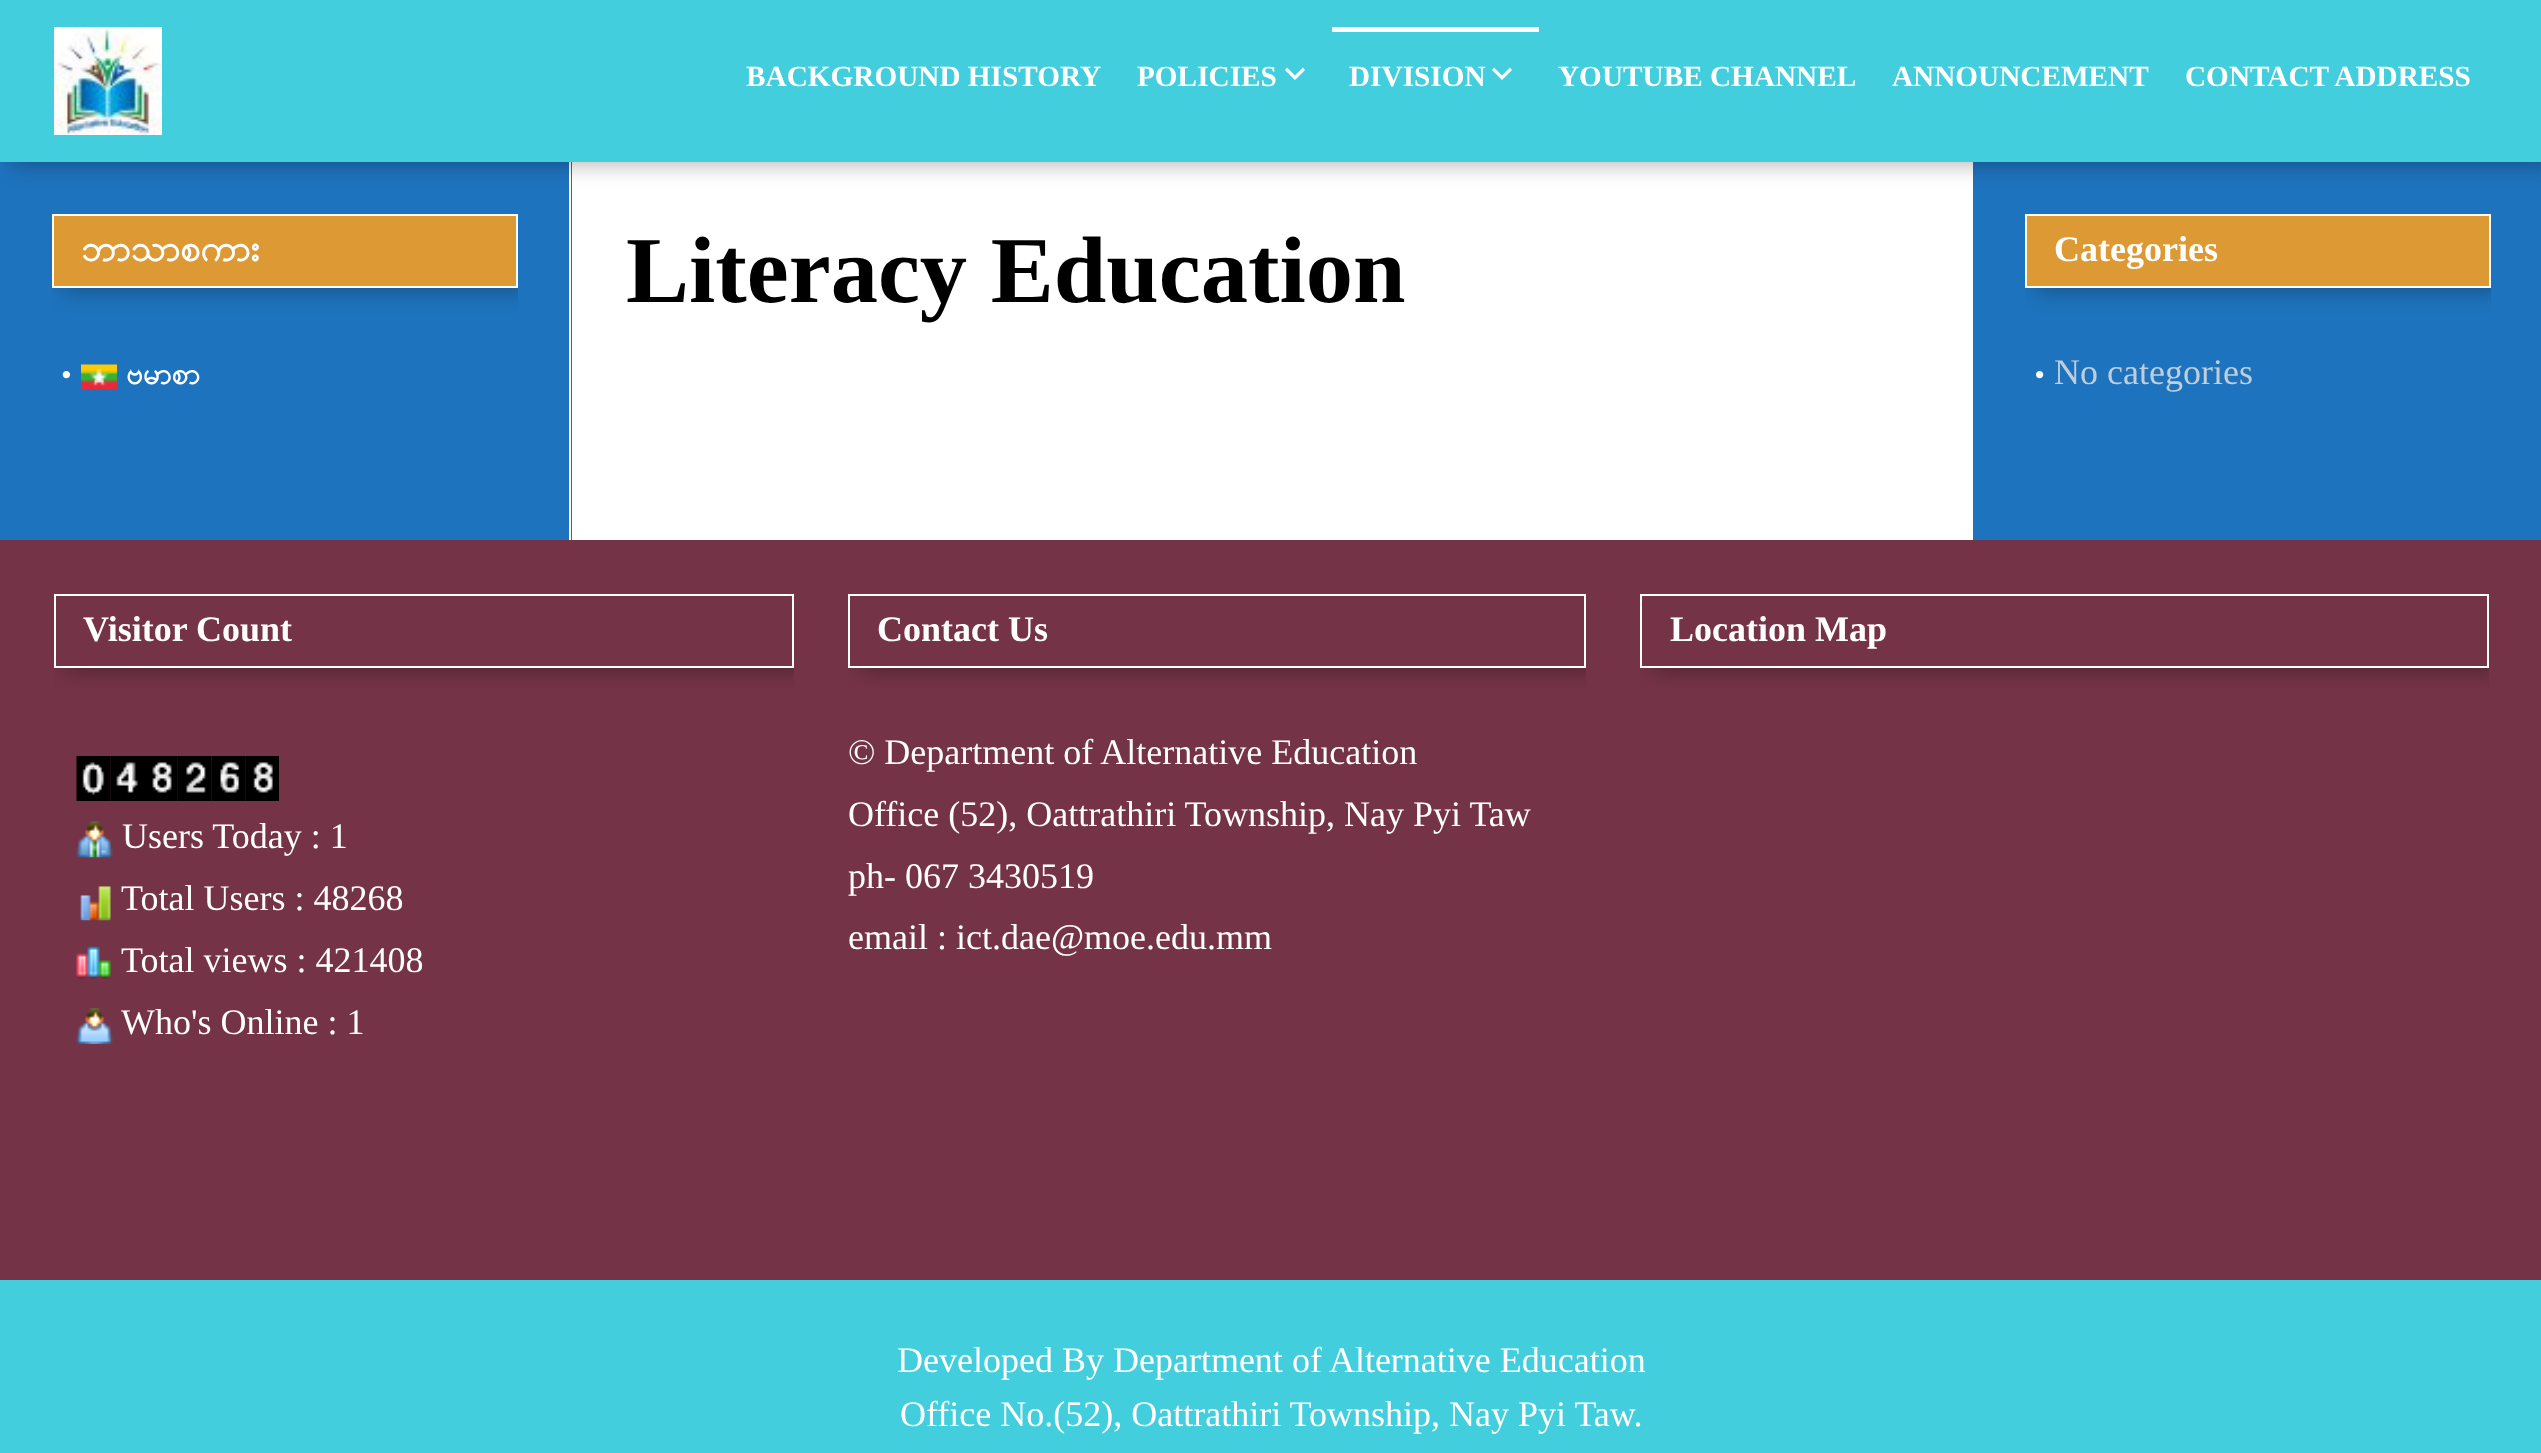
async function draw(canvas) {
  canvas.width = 2541
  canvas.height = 1453
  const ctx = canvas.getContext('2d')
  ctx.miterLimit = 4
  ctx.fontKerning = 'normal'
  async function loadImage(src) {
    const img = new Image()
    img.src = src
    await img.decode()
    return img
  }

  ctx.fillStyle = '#fff'
  ctx.fillRect(0, 0, 2541, 1453)
  ctx.fillStyle = '#1e73be'
  ctx.fillRect(0, 162, 572, 378)
  ctx.fillStyle = '#fff'
  ctx.fillRect(569, 162, 2, 378)
  ctx.fillStyle = '#1e73be'
  ctx.fillRect(1973, 162, 568, 378)
  ctx.fillStyle = '#0000004d'
  ctx.filter = 'blur(11px)'
  ctx.beginPath()
  ctx.rect(11, 2, 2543, 162)
  ctx.fill()
  ctx.filter = 'none'
  ctx.fillStyle = '#42cedd'
  ctx.fillRect(0, 0, 2541, 162)
  ctx.drawImage(await loadImage('image0.png'), 54, 27, 108, 108)
  ctx.font = 'bold 29.25px Liberation Serif'
  ctx.fillStyle = '#fff'
  ctx.fillText('BACKGROUND HISTORY', 746, 86)
  ctx.fillText('POLICIES', 1137, 86)
  ctx.beginPath()
  ctx.moveTo(1303, 67.5)
  ctx.lineTo(1305, 70)
  ctx.lineTo(1295, 80)
  ctx.lineTo(1285, 70)
  ctx.lineTo(1287, 67.5)
  ctx.lineTo(1295, 75.5)
  ctx.closePath()
  ctx.fill()
  ctx.fillRect(1332, 27, 207, 5)
  ctx.fillText('DIVISION', 1349, 86)
  ctx.beginPath()
  ctx.moveTo(1510, 67.5)
  ctx.lineTo(1512, 70)
  ctx.lineTo(1502, 80)
  ctx.lineTo(1492, 70)
  ctx.lineTo(1494, 67.5)
  ctx.lineTo(1502, 75.5)
  ctx.closePath()
  ctx.fill()
  ctx.fillText('YOUTUBE CHANNEL', 1558, 86)
  ctx.fillText('ANNOUNCEMENT', 1892, 86)
  ctx.fillText('CONTACT ADDRESS', 2185, 86)
  ctx.save()
  ctx.beginPath()
  ctx.rect(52, 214, 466, 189)
  ctx.clip()
  ctx.fillStyle = '#0000004d'
  ctx.filter = 'blur(11px)'
  ctx.beginPath()
  ctx.rect(63, 216, 466, 74)
  ctx.fill()
  ctx.filter = 'none'
  ctx.restore()
  ctx.fillStyle = '#d93'
  ctx.beginPath()
  ctx.rect(53, 215, 464, 72)
  ctx.fill()
  ctx.strokeStyle = '#fff'
  ctx.lineWidth = 2
  ctx.stroke()
  ctx.font = 'bold 36px Padauk'
  ctx.fillStyle = '#fff'
  ctx.fillText('ဘာသာစကား', 81, 261)
  ctx.drawImage(await loadImage('image1.png'), 62, 371, 8, 8)
  ctx.drawImage(await loadImage('image2.png'), 81, 364, 36, 26)
  ctx.font = 'bold 29.25px Padauk'
  ctx.fillText('ဗမာစာ', 126, 384)
  ctx.font = 'bold 94.5px Liberation Serif'
  ctx.fillStyle = '#000'
  ctx.fillText('Literacy Education', 626, 302)
  ctx.save()
  ctx.beginPath()
  ctx.rect(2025, 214, 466, 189)
  ctx.clip()
  ctx.fillStyle = '#0000004d'
  ctx.filter = 'blur(11px)'
  ctx.beginPath()
  ctx.rect(2036, 216, 466, 74)
  ctx.fill()
  ctx.filter = 'none'
  ctx.restore()
  ctx.fillStyle = '#d93'
  ctx.beginPath()
  ctx.rect(2026, 215, 464, 72)
  ctx.fill()
  ctx.stroke()
  ctx.font = 'bold 36px Liberation Serif'
  ctx.fillStyle = '#fff'
  ctx.fillText('Categories', 2054, 261)
  ctx.drawImage(await loadImage('image3.png'), 2036, 371, 8, 8)
  ctx.font = '36px Liberation Serif'
  ctx.fillStyle = '#c0cedb'
  ctx.fillText('No categories', 2054, 384)
  ctx.fillStyle = '#753348'
  ctx.fillRect(0, 540, 2541, 740)
  ctx.save()
  ctx.beginPath()
  ctx.rect(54, 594, 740, 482)
  ctx.clip()
  ctx.beginPath()
  ctx.rect(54, 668, 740, 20)
  ctx.clip()
  ctx.fillStyle = '#0000004d'
  ctx.filter = 'blur(11px)'
  ctx.beginPath()
  ctx.rect(65, 596, 741, 75)
  ctx.fill()
  ctx.filter = 'none'
  ctx.restore()
  ctx.strokeRect(55, 595, 738, 72)
  ctx.font = 'bold 36px Liberation Serif'
  ctx.fillStyle = '#fff'
  ctx.fillText('Visitor Count', 83, 641)
  ctx.drawImage(await loadImage('image4.png'), 76, 756, 35, 45)
  ctx.drawImage(await loadImage('image5.png'), 110, 756, 34, 45)
  ctx.drawImage(await loadImage('image6.png'), 144, 756, 34, 45)
  ctx.drawImage(await loadImage('image7.png'), 177, 756, 35, 45)
  ctx.drawImage(await loadImage('image8.png'), 211, 756, 35, 45)
  ctx.drawImage(await loadImage('image9.png'), 245, 756, 34, 45)
  ctx.drawImage(await loadImage('image10.png'), 76, 821, 37, 37)
  ctx.font = '36px Liberation Serif'
  ctx.fillText('Users Today : 1', 122, 848)
  ctx.drawImage(await loadImage('image11.png'), 80, 886, 31, 35)
  ctx.fillText('Total Users : 48268', 121, 910)
  ctx.drawImage(await loadImage('image12.png'), 76, 946, 35, 33)
  ctx.fillText('Total views : 421408', 121, 972)
  ctx.drawImage(await loadImage('image13.png'), 76, 1008, 37, 36)
  ctx.fillText('Who\'s Online : 1', 121, 1034)
  ctx.save()
  ctx.beginPath()
  ctx.rect(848, 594, 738, 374)
  ctx.clip()
  ctx.beginPath()
  ctx.rect(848, 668, 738, 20)
  ctx.clip()
  ctx.fillStyle = '#0000004d'
  ctx.filter = 'blur(11px)'
  ctx.beginPath()
  ctx.rect(860, 596, 738, 75)
  ctx.fill()
  ctx.filter = 'none'
  ctx.restore()
  ctx.strokeRect(849, 595, 736, 72)
  ctx.font = 'bold 36px Liberation Serif'
  ctx.fillText('Contact Us', 877, 641)
  ctx.font = '36px Liberation Serif'
  ctx.fillText('© Department of Alternative Education', 848, 764)
  ctx.fillText('Office (52), Oattrathiri Township, Nay Pyi Taw', 848, 826)
  ctx.fillText('ph- 067 3430519', 848, 888)
  ctx.fillText('email : ict.dae@moe.edu.mm', 848, 949)
  ctx.save()
  ctx.beginPath()
  ctx.rect(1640, 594, 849, 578)
  ctx.clip()
  ctx.beginPath()
  ctx.rect(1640, 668, 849, 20)
  ctx.clip()
  ctx.fillStyle = '#0000004d'
  ctx.filter = 'blur(11px)'
  ctx.beginPath()
  ctx.rect(1652, 596, 848, 75)
  ctx.fill()
  ctx.filter = 'none'
  ctx.restore()
  ctx.strokeRect(1641, 595, 847, 72)
  ctx.font = 'bold 36px Liberation Serif'
  ctx.fillText('Location Map', 1670, 641)
  ctx.fillStyle = '#42cedd'
  ctx.fillRect(0, 1280, 2541, 173)
  ctx.font = '36px Liberation Serif'
  ctx.fillStyle = '#fff'
  ctx.fillText('Developed By Department of Alternative Education', 897, 1372)
  ctx.fillText('Office No.(52), Oattrathiri Township, Nay Pyi Taw.', 900, 1426)
}

draw(document.querySelector('canvas'))
